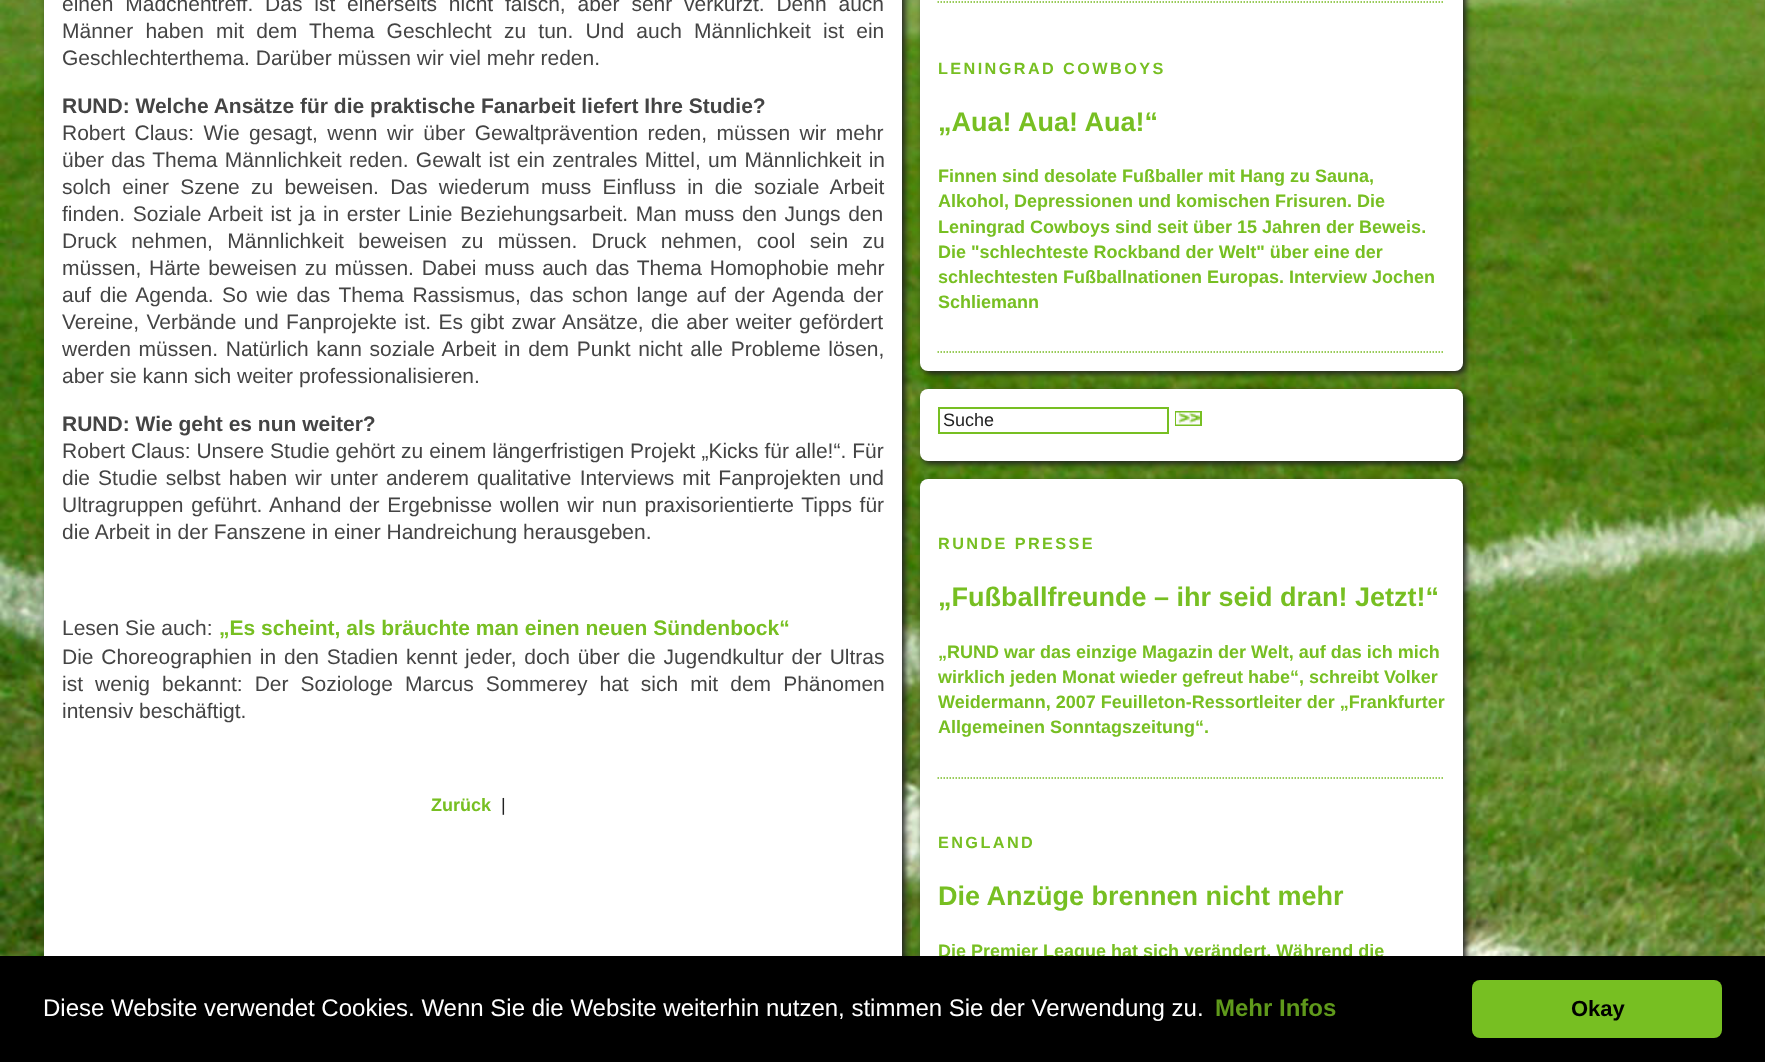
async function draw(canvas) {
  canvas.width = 1765
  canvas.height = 1062
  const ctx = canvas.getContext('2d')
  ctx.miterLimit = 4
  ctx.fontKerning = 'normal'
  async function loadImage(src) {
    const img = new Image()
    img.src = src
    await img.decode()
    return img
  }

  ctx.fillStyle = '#fff'
  ctx.fillRect(0, 0, 1765, 1062)
  ctx.drawImage(await loadImage('image0.png'), 0, 0, 1765, 956)
  ctx.fillStyle = '#222'
  ctx.filter = 'blur(3px)'
  ctx.beginPath()
  ctx.roundRect(47, -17, 858, 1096, 8)
  ctx.fill()
  ctx.filter = 'none'
  ctx.fillStyle = '#fff'
  ctx.fillRect(44, 0, 858, 956)
  ctx.wordSpacing = '6px'
  ctx.font = '21px Liberation Sans'
  ctx.fillStyle = '#444'
  ctx.fillText('einen Mädchentreff. Das ist einerseits nicht falsch, aber sehr verkürzt. Denn auch', 62, 11)
  ctx.wordSpacing = '6.4px'
  ctx.fillText('Männer haben mit dem Thema Geschlecht zu tun. Und auch Männlichkeit ist ein', 62, 38)
  ctx.wordSpacing = '0px'
  ctx.fillText('Geschlechterthema. Darüber müssen wir viel mehr reden.', 62, 65)
  ctx.font = 'bold 21px Liberation Sans'
  ctx.fillText('RUND: Welche Ansätze für die praktische Fanarbeit liefert Ihre Studie?', 62, 113)
  ctx.wordSpacing = '3.6px'
  ctx.font = '21px Liberation Sans'
  ctx.fillText('Robert Claus: Wie gesagt, wenn wir über Gewaltprävention reden, müssen wir mehr', 62, 140)
  ctx.wordSpacing = '1.5px'
  ctx.fillText('über das Thema Männlichkeit reden. Gewalt ist ein zentrales Mittel, um Männlichkeit in', 62, 167)
  ctx.wordSpacing = '5.4px'
  ctx.fillText('solch einer Szene zu beweisen. Das wiederum muss Einfluss in die soziale Arbeit', 62, 194)
  ctx.wordSpacing = '1.75px'
  ctx.fillText('finden. Soziale Arbeit ist ja in erster Linie Beziehungsarbeit. Man muss den Jungs den', 62, 221)
  ctx.wordSpacing = '8.5px'
  ctx.fillText('Druck nehmen, Männlichkeit beweisen zu müssen. Druck nehmen, cool sein zu', 62, 248)
  ctx.wordSpacing = '1.9px'
  ctx.fillText('müssen, Härte beweisen zu müssen. Dabei muss auch das Thema Homophobie mehr', 62, 275)
  ctx.wordSpacing = '2.75px'
  ctx.fillText('auf die Agenda. So wie das Thema Rassismus, das schon lange auf der Agenda der', 62, 302)
  ctx.wordSpacing = '1.5px'
  ctx.fillText('Vereine, Verbände und Fanprojekte ist. Es gibt zwar Ansätze, die aber weiter gefördert', 62, 329)
  ctx.wordSpacing = '1.9px'
  ctx.fillText('werden müssen. Natürlich kann soziale Arbeit in dem Punkt nicht alle Probleme lösen,', 62, 356)
  ctx.wordSpacing = '0px'
  ctx.fillText('aber sie kann sich weiter professionalisieren.', 62, 383)
  ctx.font = 'bold 21px Liberation Sans'
  ctx.fillText('RUND: Wie geht es nun weiter?', 62, 431)
  ctx.wordSpacing = '0.1px'
  ctx.font = '21px Liberation Sans'
  ctx.fillText('Robert Claus: Unsere Studie gehört zu einem längerfristigen Projekt „Kicks für alle!“. Für', 62, 458)
  ctx.wordSpacing = '2.25px'
  ctx.fillText('die Studie selbst haben wir unter anderem qualitative Interviews mit Fanprojekten und', 62, 485)
  ctx.wordSpacing = '1.9px'
  ctx.fillText('Ultragruppen geführt. Anhand der Ergebnisse wollen wir nun praxisorientierte Tipps für', 62, 512)
  ctx.wordSpacing = '0px'
  ctx.fillText('die Arbeit in der Fanszene in einer Handreichung herausgeben.', 62, 539)
  ctx.fillText('Lesen Sie auch:', 62, 635)
  ctx.font = 'bold 21px Liberation Sans'
  ctx.fillStyle = '#77bf22'
  ctx.fillText('„Es scheint, als bräuchte man einen neuen Sündenbock“', 219, 635)
  ctx.wordSpacing = '2px'
  ctx.font = '21px Liberation Sans'
  ctx.fillStyle = '#444'
  ctx.fillText('Die Choreographien in den Stadien kennt jeder, doch über die Jugendkultur der Ultras', 62, 664)
  ctx.wordSpacing = '6.25px'
  ctx.fillText('ist wenig bekannt: Der Soziologe Marcus Sommerey hat sich mit dem Phänomen', 62, 691)
  ctx.wordSpacing = '0px'
  ctx.fillText('intensiv beschäftigt.', 62, 718)
  ctx.font = 'bold 18px Liberation Sans'
  ctx.fillStyle = '#77bf22'
  ctx.fillText('Zurück', 431, 811)
  ctx.font = '18px Liberation Sans'
  ctx.fillStyle = '#222'
  ctx.fillText('|', 501, 811)
  ctx.filter = 'blur(3px)'
  ctx.beginPath()
  ctx.roundRect(923, -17, 543, 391, 8)
  ctx.fill()
  ctx.filter = 'none'
  ctx.fillStyle = '#fff'
  ctx.beginPath()
  ctx.roundRect(920, -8, 543, 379, 8)
  ctx.fill()
  ctx.beginPath()
  ctx.moveTo(937.5, 2)
  ctx.lineTo(1444.5, 2)
  ctx.strokeStyle = '#7b2'
  ctx.lineWidth = 1.5
  ctx.setLineDash([1.5, 1.5])
  ctx.stroke()
  ctx.beginPath()
  ctx.moveTo(937.5, 352)
  ctx.lineTo(1444.5, 352)
  ctx.stroke()
  ctx.letterSpacing = '2.4px'
  ctx.font = 'bold 16.25px Liberation Sans'
  ctx.fillStyle = '#77bf22'
  ctx.fillText('LENINGRAD COWBOYS', 938, 74)
  ctx.letterSpacing = '0px'
  ctx.font = 'bold 27px Liberation Sans'
  ctx.fillText('„Aua! Aua! Aua!“', 938, 131)
  ctx.font = 'bold 18px Liberation Sans'
  ctx.fillText('Finnen sind desolate Fußballer mit Hang zu Sauna,', 938, 182)
  ctx.fillText('Alkohol, Depressionen und komischen Frisuren. Die', 938, 207)
  ctx.fillText('Leningrad Cowboys sind seit über 15 Jahren der Beweis.', 938, 233)
  ctx.fillText('Die "schlechteste Rockband der Welt" über eine der', 938, 258)
  ctx.fillText('schlechtesten Fußballnationen Europas. Interview Jochen', 938, 283)
  ctx.fillText('Schliemann', 938, 308)
  ctx.fillStyle = '#222'
  ctx.filter = 'blur(3px)'
  ctx.beginPath()
  ctx.roundRect(923, 392, 543, 72, 8)
  ctx.fill()
  ctx.filter = 'none'
  ctx.fillStyle = '#fff'
  ctx.beginPath()
  ctx.roundRect(920, 389, 543, 72, 8)
  ctx.fill()
  ctx.strokeStyle = '#77bf22'
  ctx.lineWidth = 2
  ctx.setLineDash([])
  ctx.strokeRect(939, 408, 229, 25)
  ctx.font = '18px Liberation Sans'
  ctx.fillStyle = '#222'
  ctx.fillText('Suche', 943, 426)
  ctx.strokeRect(1176, 412, 25, 13)
  ctx.drawImage(await loadImage('image1.png'), 1176, 412, 24, 13)
  ctx.filter = 'blur(3px)'
  ctx.beginPath()
  ctx.roundRect(923, 482, 543, 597, 8)
  ctx.fill()
  ctx.filter = 'none'
  ctx.fillStyle = '#fff'
  ctx.beginPath()
  ctx.roundRect(920, 479, 543, 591, 8)
  ctx.fill()
  ctx.beginPath()
  ctx.moveTo(937.5, 778)
  ctx.lineTo(1444.5, 778)
  ctx.strokeStyle = '#7b2'
  ctx.lineWidth = 1.5
  ctx.setLineDash([1.5, 1.5])
  ctx.stroke()
  ctx.letterSpacing = '2.4px'
  ctx.font = 'bold 16.25px Liberation Sans'
  ctx.fillStyle = '#77bf22'
  ctx.fillText('RUNDE PRESSE', 938, 549)
  ctx.letterSpacing = '0px'
  ctx.font = 'bold 27px Liberation Sans'
  ctx.fillText('„Fußballfreunde – ihr seid dran! Jetzt!“', 938, 606)
  ctx.font = 'bold 18px Liberation Sans'
  ctx.fillText('„RUND war das einzige Magazin der Welt, auf das ich mich', 938, 658)
  ctx.fillText('wirklich jeden Monat wieder gefreut habe“, schreibt Volker', 938, 683)
  ctx.fillText('Weidermann, 2007 Feuilleton-Ressortleiter der „Frankfurter', 938, 708)
  ctx.fillText('Allgemeinen Sonntagszeitung“.', 938, 733)
  ctx.letterSpacing = '2.4px'
  ctx.font = 'bold 16.25px Liberation Sans'
  ctx.fillText('ENGLAND', 938, 848)
  ctx.letterSpacing = '0px'
  ctx.font = 'bold 27px Liberation Sans'
  ctx.fillText('Die Anzüge brennen nicht mehr', 938, 905)
  ctx.font = 'bold 18px Liberation Sans'
  ctx.fillText('Die Premier League hat sich verändert. Während die', 938, 957)
  ctx.fillStyle = '#000'
  ctx.fillRect(0, 956, 1765, 106)
  ctx.font = '24px Liberation Sans'
  ctx.fillStyle = '#fff'
  ctx.fillText('Diese Website verwendet Cookies. Wenn Sie die Website weiterhin nutzen, stimmen Sie der Verwendung zu.', 43, 1016)
  ctx.font = 'bold 24px Liberation Sans'
  ctx.fillStyle = '#5f991b'
  ctx.fillText('Mehr Infos', 1215, 1016)
  ctx.fillStyle = '#77bf22'
  ctx.beginPath()
  ctx.roundRect(1472, 980, 250, 58, 8)
  ctx.fill()
  ctx.font = 'bold 22px Liberation Sans'
  ctx.fillStyle = '#000'
  ctx.fillText('Okay', 1571, 1016)
}

draw(document.querySelector('canvas'))
